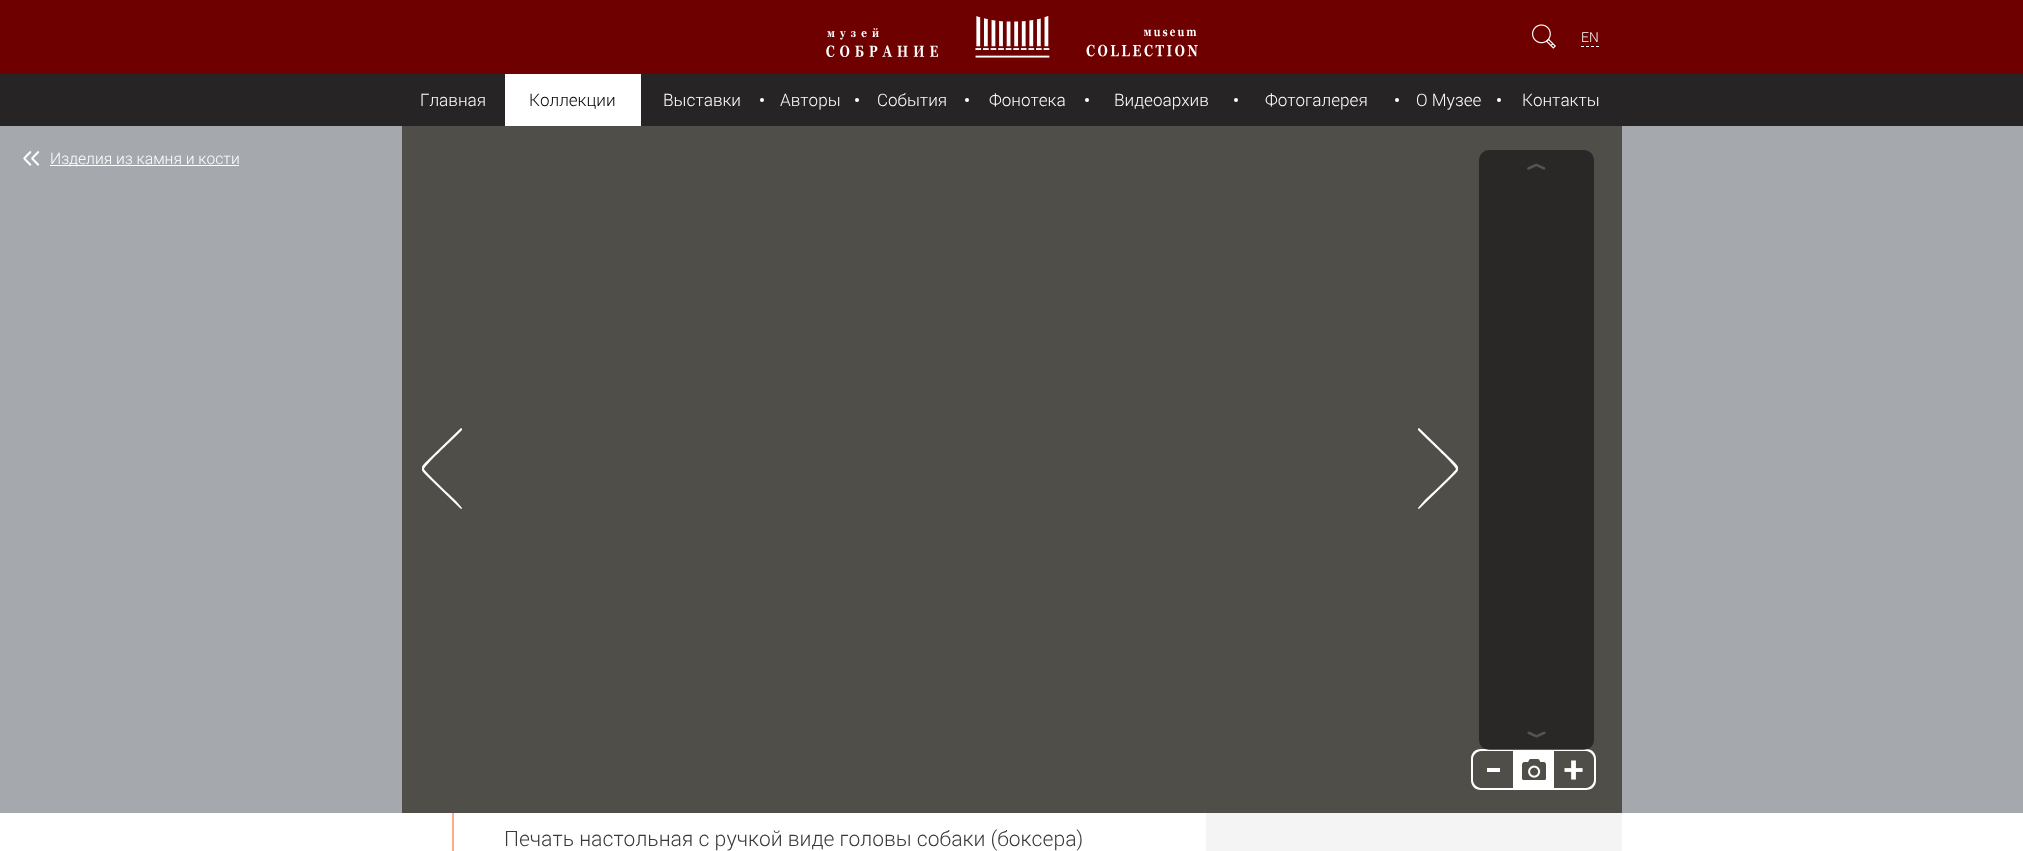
async function draw(canvas) {
  canvas.width = 2023
  canvas.height = 851
  const ctx = canvas.getContext('2d')
  ctx.miterLimit = 4
  ctx.fontKerning = 'normal'
  async function loadImage(src) {
    const img = new Image()
    img.src = src
    await img.decode()
    return img
  }

  ctx.fillStyle = '#fff'
  ctx.fillRect(0, 0, 2023, 851)
  ctx.fillStyle = '#6f0000'
  ctx.fillRect(0, 0, 2023, 74)
  ctx.drawImage(await loadImage('image0.png'), 826, 16, 372, 42)
  ctx.drawImage(await loadImage('image1.png'), 1532, 24, 24, 25)
  ctx.font = '300 14px Roboto'
  ctx.fillStyle = '#fff'
  ctx.fillText('EN', 1581, 42)
  ctx.beginPath()
  ctx.moveTo(1581, 46.5)
  ctx.lineTo(1599, 46.5)
  ctx.strokeStyle = '#fff'
  ctx.setLineDash([3, 2])
  ctx.stroke()
  ctx.fillStyle = '#262424'
  ctx.fillRect(0, 74, 2023, 52)
  ctx.font = '300 17.5px Roboto'
  ctx.fillStyle = '#fff'
  ctx.fillText('Главная', 420, 106)
  ctx.fillRect(505, 74, 136, 52)
  ctx.fillStyle = '#000'
  ctx.fillText('Коллекции', 529, 106)
  ctx.fillStyle = '#fff'
  ctx.fillText('Выставки', 663, 106)
  ctx.beginPath()
  ctx.arc(762, 100, 2, 0, 2 * Math.PI)
  ctx.fill()
  ctx.fillText('Авторы', 780, 106)
  ctx.beginPath()
  ctx.arc(857, 100, 2, 0, 2 * Math.PI)
  ctx.fill()
  ctx.fillText('События', 877, 106)
  ctx.beginPath()
  ctx.arc(967, 100, 2, 0, 2 * Math.PI)
  ctx.fill()
  ctx.fillText('Фонотека', 989, 106)
  ctx.beginPath()
  ctx.arc(1087, 100, 2, 0, 2 * Math.PI)
  ctx.fill()
  ctx.fillText('Видеоархив', 1114, 106)
  ctx.beginPath()
  ctx.arc(1236, 100, 2, 0, 2 * Math.PI)
  ctx.fill()
  ctx.fillText('Фотогалерея', 1265, 106)
  ctx.beginPath()
  ctx.arc(1397, 100, 2, 0, 2 * Math.PI)
  ctx.fill()
  ctx.fillText('О Музее', 1416, 106)
  ctx.beginPath()
  ctx.arc(1499, 100, 2, 0, 2 * Math.PI)
  ctx.fill()
  ctx.fillText('Контакты', 1522, 106)
  ctx.fillStyle = '#a5a8ad'
  ctx.fillRect(0, 126, 2023, 687)
  ctx.fillStyle = '#4f4e49'
  ctx.fillRect(402, 126, 1220, 687)
  ctx.save()
  ctx.beginPath()
  ctx.rect(422, 428, 40, 81)
  ctx.clip()
  ctx.fillStyle = '#fff'
  ctx.beginPath()
  ctx.moveTo(461, 509)
  ctx.bezierCurveTo(462, 509, 462, 508, 462, 508)
  ctx.lineTo(456, 501)
  ctx.bezierCurveTo(452, 497, 424, 471, 424, 469)
  ctx.bezierCurveTo(424, 466, 452, 440, 456, 436)
  ctx.lineTo(462, 430)
  ctx.bezierCurveTo(462, 429, 462, 428, 461, 428)
  ctx.lineTo(429, 459)
  ctx.bezierCurveTo(419, 469, 419, 468, 429, 478)
  ctx.closePath()
  ctx.fill()
  ctx.restore()
  ctx.save()
  ctx.beginPath()
  ctx.rect(1418, 428, 40, 81)
  ctx.clip()
  ctx.fillStyle = '#fff'
  ctx.beginPath()
  ctx.moveTo(1419, 509)
  ctx.bezierCurveTo(1418, 509, 1418, 508, 1418, 508)
  ctx.lineTo(1424, 501)
  ctx.bezierCurveTo(1428, 497, 1456, 471, 1456, 469)
  ctx.bezierCurveTo(1456, 466, 1428, 440, 1424, 436)
  ctx.lineTo(1418, 430)
  ctx.bezierCurveTo(1418, 429, 1418, 428, 1419, 428)
  ctx.lineTo(1451, 459)
  ctx.bezierCurveTo(1461, 469, 1461, 468, 1451, 478)
  ctx.closePath()
  ctx.fill()
  ctx.restore()
  ctx.fillStyle = '#fff'
  ctx.fillRect(1487, 768, 13, 4)
  ctx.beginPath()
  ctx.moveTo(1481, 749)
  ctx.lineTo(1513, 749)
  ctx.lineTo(1513, 790)
  ctx.lineTo(1481, 790)
  ctx.bezierCurveTo(1475, 790, 1471, 786, 1471, 780)
  ctx.lineTo(1471, 759)
  ctx.bezierCurveTo(1471, 753, 1475, 749, 1481, 749)
  ctx.closePath()
  ctx.moveTo(1481, 751)
  ctx.lineTo(1513, 751)
  ctx.lineTo(1513, 788)
  ctx.lineTo(1481, 788)
  ctx.bezierCurveTo(1477, 788, 1473, 784, 1473, 780)
  ctx.lineTo(1473, 759)
  ctx.bezierCurveTo(1473, 755, 1477, 751, 1481, 751)
  ctx.closePath()
  ctx.fill('evenodd')
  ctx.drawImage(await loadImage('image4.png'), 1515, 751, 37, 37)
  ctx.lineWidth = 2
  ctx.setLineDash([])
  ctx.strokeRect(1514, 750, 39, 39)
  ctx.drawImage(await loadImage('image5.png'), 1564, 760, 19, 20)
  ctx.beginPath()
  ctx.moveTo(1554, 749)
  ctx.lineTo(1586, 749)
  ctx.bezierCurveTo(1592, 749, 1596, 753, 1596, 759)
  ctx.lineTo(1596, 780)
  ctx.bezierCurveTo(1596, 786, 1592, 790, 1586, 790)
  ctx.lineTo(1554, 790)
  ctx.closePath()
  ctx.moveTo(1554, 751)
  ctx.lineTo(1586, 751)
  ctx.bezierCurveTo(1590, 751, 1594, 755, 1594, 759)
  ctx.lineTo(1594, 780)
  ctx.bezierCurveTo(1594, 784, 1590, 788, 1586, 788)
  ctx.lineTo(1554, 788)
  ctx.closePath()
  ctx.fill('evenodd')
  ctx.fillStyle = '#1a1818b3'
  ctx.beginPath()
  ctx.roundRect(1479, 150, 115, 600, 10)
  ctx.fill()
  ctx.drawImage(await loadImage('image2.png'), 1527, 163, 19, 7)
  ctx.drawImage(await loadImage('image3.png'), 1527, 731, 19, 7)
  ctx.drawImage(await loadImage('image6.png'), 23, 151, 17, 15)
  ctx.fillStyle = '#fff'
  ctx.fillRect(50, 165, 189, 1)
  ctx.font = '300 16px Roboto'
  ctx.fillText('Изделия из камня и кости', 50, 164)
  ctx.fillStyle = '#ffab8b'
  ctx.fillRect(452, 813, 2, 38)
  ctx.font = '300 21.6px Roboto'
  ctx.fillStyle = '#3a3a3a'
  ctx.fillText('Печать настольная с ручкой виде головы собаки (боксера)', 504, 846)
  ctx.fillStyle = '#f4f4f4'
  ctx.fillRect(1206, 813, 416, 38)
}

draw(document.querySelector('canvas'))
